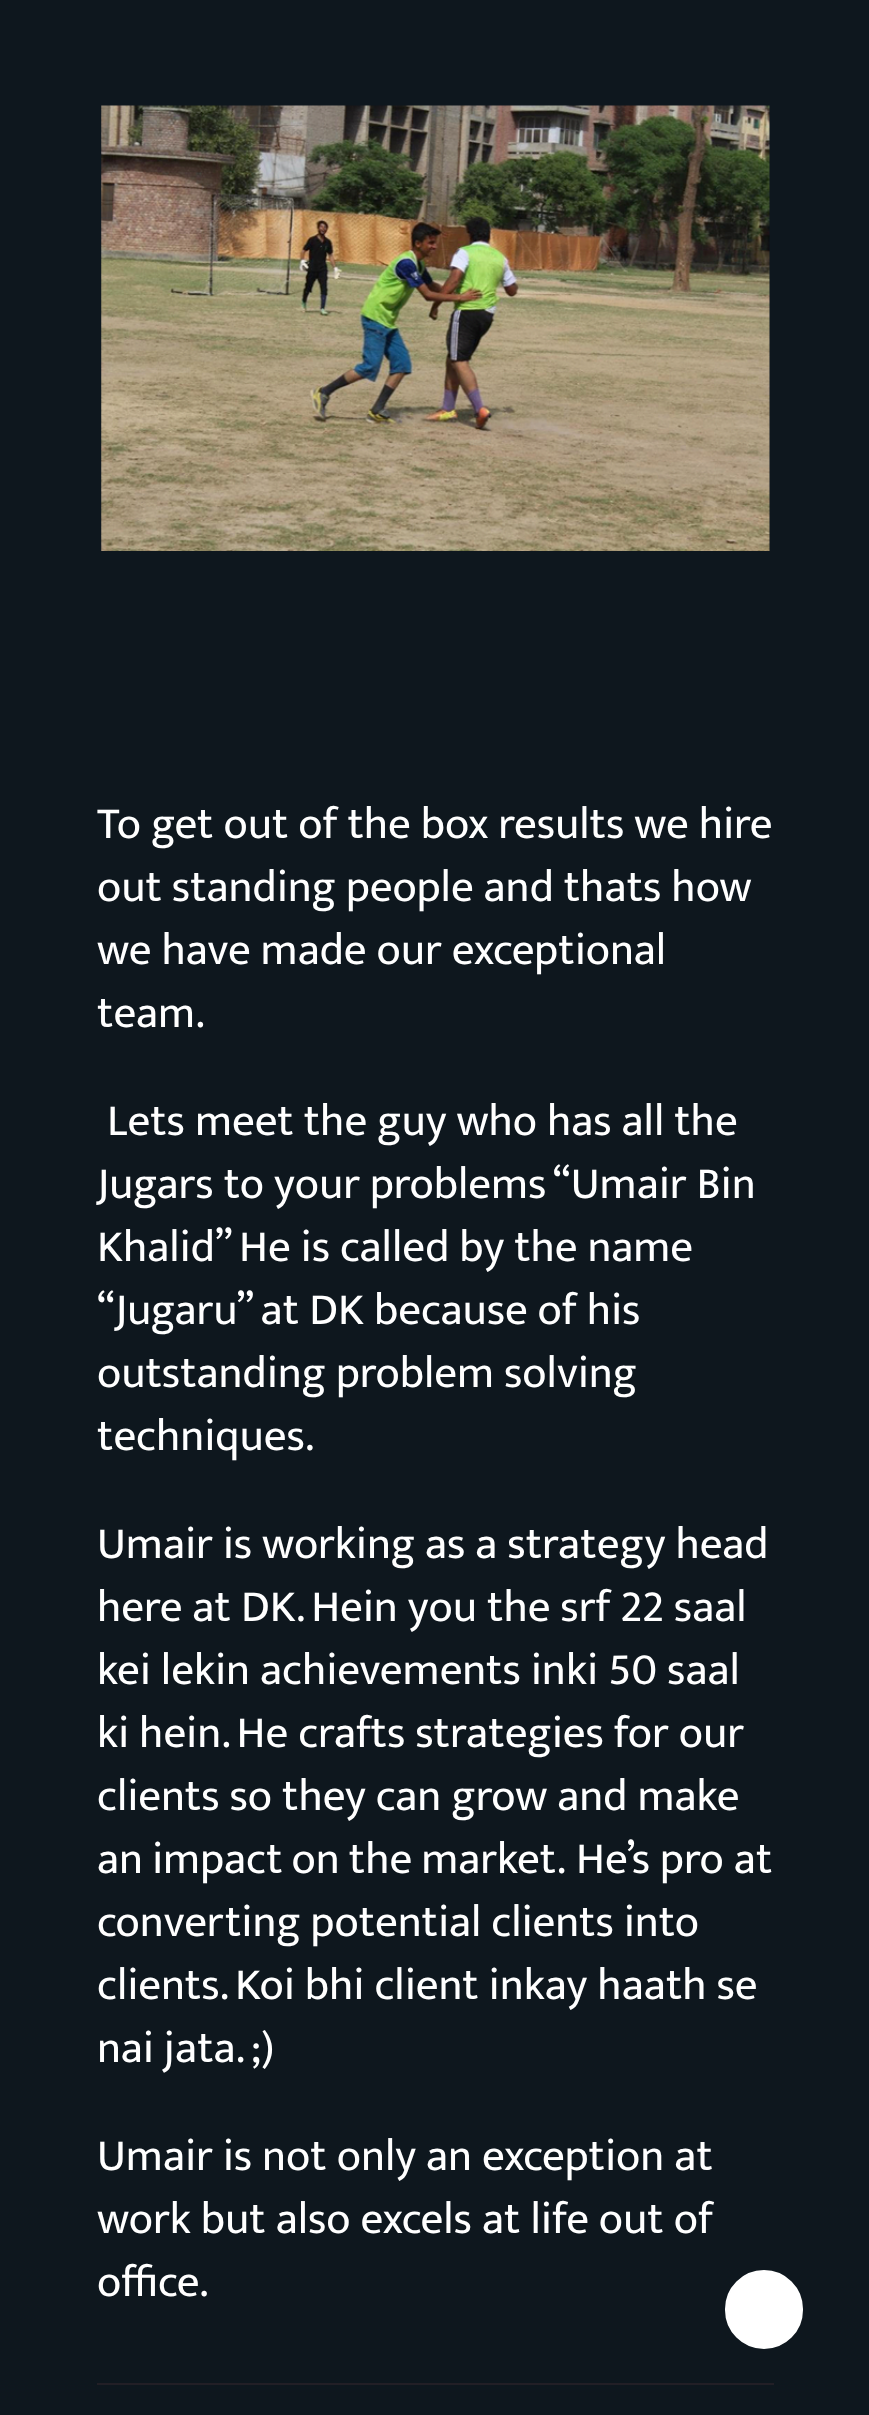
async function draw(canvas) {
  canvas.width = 869
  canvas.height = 2415
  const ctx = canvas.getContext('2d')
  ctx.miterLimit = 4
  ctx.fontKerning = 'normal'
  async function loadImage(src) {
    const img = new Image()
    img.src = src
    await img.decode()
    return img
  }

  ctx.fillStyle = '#0e171e'
  ctx.fillRect(0, 0, 869, 2415)
  ctx.drawImage(await loadImage('image0.png'), 101, 105, 669, 446)
  ctx.font = '45px Mukta Vaani'
  ctx.fillStyle = '#fff'
  ctx.fillText('To get out of the box results we hire', 97, 838)
  ctx.fillText('out standing people and thats how', 97, 901)
  ctx.fillText('we have made our exceptional', 97, 964)
  ctx.fillText('team.', 97, 1027)
  ctx.fillText('Lets meet the guy who has all the', 107, 1135)
  ctx.fillText('Jugars to your problems “Umair Bin', 97, 1198)
  ctx.fillText('Khalid”', 97, 1261)
  ctx.fillText('He is called by the name', 239, 1261)
  ctx.fillText('“Jugaru” at DK because of his', 97, 1324)
  ctx.fillText('outstanding problem solving', 97, 1387)
  ctx.fillText('techniques.', 97, 1450)
  ctx.fillText('Umair is working as a strategy head', 97, 1558)
  ctx.fillText('here at DK. Hein you the srf 22 saal', 97, 1621)
  ctx.fillText('kei lekin achievements inki 50 saal', 97, 1684)
  ctx.fillText('ki hein. He crafts strategies for our', 97, 1747)
  ctx.fillText('clients so they can grow and make', 97, 1810)
  ctx.wordSpacing = '-1px'
  ctx.fillText('an impact on the market.', 97, 1873)
  ctx.wordSpacing = '0px'
  ctx.fillText('He’s pro at', 576, 1873)
  ctx.fillText('converting potential clients into', 97, 1936)
  ctx.fillText('clients. Koi bhi client inkay haath se', 97, 1999)
  ctx.fillText('nai jata. ;)', 97, 2062)
  ctx.fillText('Umair is not only an exception at', 97, 2170)
  ctx.fillText('work but also excels at life out of', 97, 2233)
  ctx.fillText('office.', 97, 2296)
  ctx.fillStyle = '#221f26'
  ctx.fillRect(97, 2383, 677, 2)
  ctx.fillStyle = '#fff'
  ctx.beginPath()
  ctx.roundRect(726, 2271, 76, 77, 38)
  ctx.fill()
  ctx.strokeStyle = '#fff'
  ctx.lineWidth = 2
  ctx.stroke()
}

draw(document.querySelector('canvas'))
